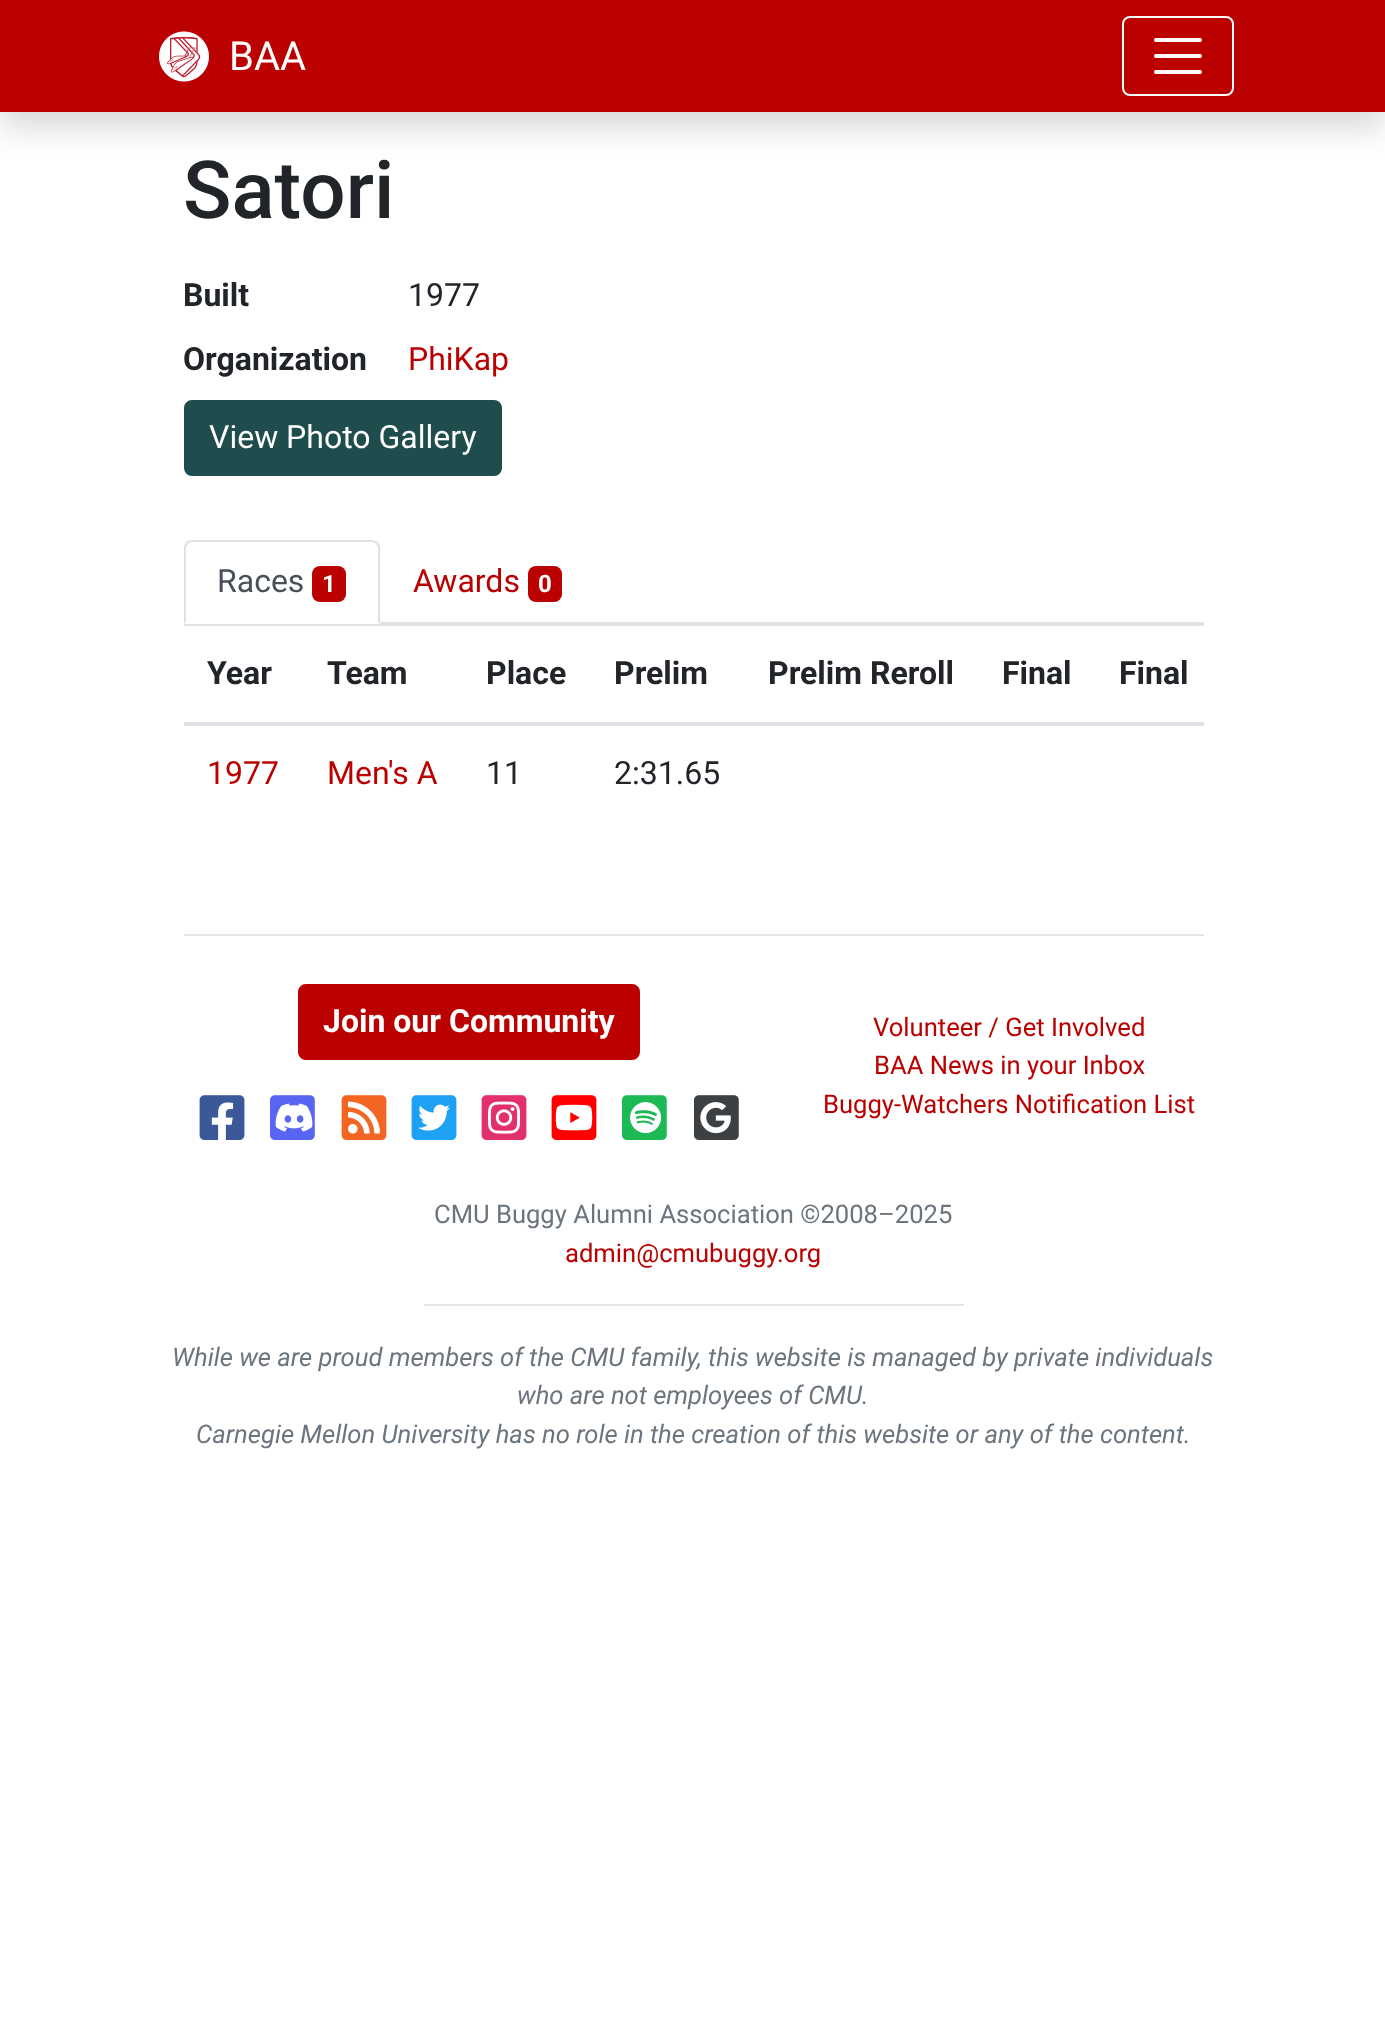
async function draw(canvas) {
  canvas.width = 1385
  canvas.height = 2037
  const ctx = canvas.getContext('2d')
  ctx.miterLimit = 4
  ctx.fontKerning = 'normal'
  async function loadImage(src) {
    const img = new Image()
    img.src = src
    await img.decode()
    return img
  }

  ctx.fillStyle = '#fff'
  ctx.fillRect(0, 0, 1385, 2037)
  ctx.fillStyle = '#00000026'
  ctx.filter = 'blur(16px)'
  ctx.beginPath()
  ctx.rect(0, 16, 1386, 112)
  ctx.fill()
  ctx.filter = 'none'
  ctx.fillStyle = '#b00'
  ctx.fillRect(0, 0, 1385, 112)
  ctx.drawImage(await loadImage('image0.png'), 159, 31, 50, 51)
  ctx.font = '40px Roboto'
  ctx.fillStyle = '#fff'
  ctx.fillText('BAA', 229, 70)
  ctx.beginPath()
  ctx.roundRect(1123, 17, 110, 78, 7)
  ctx.strokeStyle = '#fff'
  ctx.lineWidth = 2
  ctx.stroke()
  ctx.beginPath()
  ctx.moveTo(1156, 40)
  ctx.lineTo(1200, 40)
  ctx.moveTo(1156, 56)
  ctx.lineTo(1200, 56)
  ctx.moveTo(1156, 72)
  ctx.lineTo(1200, 72)
  ctx.lineWidth = 4
  ctx.lineCap = 'round'
  ctx.stroke()
  ctx.font = '500 80px Roboto'
  ctx.fillStyle = '#212529'
  ctx.fillText('Satori', 183, 218)
  ctx.font = 'bold 32px Roboto'
  ctx.fillText('Built', 183, 306)
  ctx.font = '32px Roboto'
  ctx.fillText('1977', 408, 306)
  ctx.font = 'bold 32px Roboto'
  ctx.fillText('Organization', 183, 370)
  ctx.font = '32px Roboto'
  ctx.fillStyle = '#b00'
  ctx.fillText('PhiKap', 408, 370)
  ctx.fillStyle = '#1f4c4c'
  ctx.beginPath()
  ctx.roundRect(185, 401, 316, 74, 7)
  ctx.fill()
  ctx.strokeStyle = '#1f4c4c'
  ctx.lineWidth = 2
  ctx.stroke()
  ctx.fillStyle = '#fff'
  ctx.fillText('View Photo Gallery', 209, 448)
  ctx.fillStyle = '#dee2e6'
  ctx.fillRect(380, 622, 824, 2)
  ctx.beginPath()
  ctx.moveTo(192, 540)
  ctx.bezierCurveTo(190, 540, 188, 541, 186, 542)
  ctx.lineTo(188, 544)
  ctx.bezierCurveTo(189, 543, 190, 542, 192, 542)
  ctx.lineTo(372, 542)
  ctx.bezierCurveTo(374, 542, 375, 543, 376, 544)
  ctx.lineTo(378, 542)
  ctx.bezierCurveTo(376, 541, 374, 540, 372, 540)
  ctx.closePath()
  ctx.fill()
  ctx.beginPath()
  ctx.moveTo(380, 624)
  ctx.lineTo(380, 548)
  ctx.bezierCurveTo(380, 546, 379, 544, 378, 542)
  ctx.lineTo(376, 544)
  ctx.lineTo(378, 547)
  ctx.lineTo(378, 622)
  ctx.closePath()
  ctx.fill()
  ctx.fillStyle = '#fff'
  ctx.beginPath()
  ctx.moveTo(380, 624)
  ctx.lineTo(378, 622)
  ctx.lineTo(186, 622)
  ctx.lineTo(184, 624)
  ctx.closePath()
  ctx.fill()
  ctx.fillStyle = '#dee2e6'
  ctx.beginPath()
  ctx.moveTo(184, 624)
  ctx.lineTo(186, 622)
  ctx.lineTo(186, 547)
  ctx.lineTo(188, 544)
  ctx.lineTo(186, 542)
  ctx.bezierCurveTo(185, 544, 184, 546, 184, 548)
  ctx.closePath()
  ctx.fill()
  ctx.fillStyle = '#495057'
  ctx.fillText('Races', 217, 592)
  ctx.fillStyle = '#b00'
  ctx.beginPath()
  ctx.roundRect(312, 566, 34, 36, 8)
  ctx.fill()
  ctx.font = 'bold 24px Roboto'
  ctx.fillStyle = '#fff'
  ctx.fillText('1', 322, 592)
  ctx.font = '32px Roboto'
  ctx.fillStyle = '#b00'
  ctx.fillText('Awards', 413, 592)
  ctx.beginPath()
  ctx.roundRect(528, 566, 34, 36, 8)
  ctx.fill()
  ctx.font = 'bold 24px Roboto'
  ctx.fillStyle = '#fff'
  ctx.fillText('0', 538, 592)
  ctx.font = 'bold 32px Roboto'
  ctx.fillStyle = '#212529'
  ctx.fillText('Year', 207, 684)
  ctx.fillText('Team', 327, 684)
  ctx.fillText('Place', 486, 684)
  ctx.fillText('Prelim', 614, 684)
  ctx.fillText('Prelim Reroll', 768, 684)
  ctx.fillText('Final', 1002, 684)
  ctx.fillStyle = '#dee2e6'
  ctx.fillRect(184, 624, 1020, 2)
  ctx.fillRect(184, 722, 1020, 4)
  ctx.fillStyle = '#212529'
  ctx.fillText('Final', 1119, 684)
  ctx.font = '32px Roboto'
  ctx.fillStyle = '#b00'
  ctx.fillText('1977', 207, 784)
  ctx.fillText('Men\'s A', 327, 784)
  ctx.fillStyle = '#212529'
  ctx.fillText('11', 486, 784)
  ctx.fillText('2:31.65', 614, 784)
  ctx.fillStyle = '#e6e6e6'
  ctx.fillRect(184, 934, 1020, 2)
  ctx.fillStyle = '#b00'
  ctx.beginPath()
  ctx.roundRect(299, 985, 340, 74, 7)
  ctx.fill()
  ctx.strokeStyle = '#b00'
  ctx.stroke()
  ctx.font = 'bold 32px Roboto'
  ctx.fillStyle = '#fff'
  ctx.fillText('Join our Community', 323, 1032)
  ctx.drawImage(await loadImage('image1.png'), 199, 1095, 46, 45)
  ctx.drawImage(await loadImage('image2.png'), 270, 1095, 45, 45)
  ctx.drawImage(await loadImage('image3.png'), 275, 1103, 38, 29)
  ctx.drawImage(await loadImage('image4.png'), 341, 1095, 46, 45)
  ctx.drawImage(await loadImage('image5.png'), 411, 1095, 46, 45)
  ctx.drawImage(await loadImage('image6.png'), 481, 1095, 46, 45)
  ctx.drawImage(await loadImage('image7.png'), 551, 1095, 46, 45)
  ctx.drawImage(await loadImage('image8.png'), 622, 1095, 45, 45)
  ctx.drawImage(await loadImage('image9.png'), 630, 1102, 32, 32)
  ctx.drawImage(await loadImage('image10.png'), 694, 1095, 45, 45)
  ctx.drawImage(await loadImage('image11.png'), 700, 1102, 31, 32)
  ctx.font = '25.6px Roboto'
  ctx.fillStyle = '#b00'
  ctx.fillText('Volunteer / Get Involved', 873, 1036)
  ctx.fillText('BAA News in your Inbox', 874, 1074)
  ctx.fillText('Buggy-Watchers Notification List', 823, 1113)
  ctx.fillStyle = '#6c757d'
  ctx.fillText('CMU Buggy Alumni Association ©2008–2025', 434, 1223)
  ctx.fillStyle = '#b00'
  ctx.fillText('admin@cmubuggy.org', 565, 1262)
  ctx.fillStyle = '#e6e6e6'
  ctx.fillRect(424, 1304, 540, 2)
  ctx.font = 'italic 25.6px Roboto'
  ctx.fillStyle = '#6c757d'
  ctx.fillText('While we are proud members of the CMU family, this website is managed by private individuals', 172, 1366)
  ctx.fillText('who are not employees of CMU.', 517, 1404)
  ctx.fillText('Carnegie Mellon University has no role in the creation of this website or any of the content.', 196, 1443)
}

draw(document.querySelector('canvas'))
